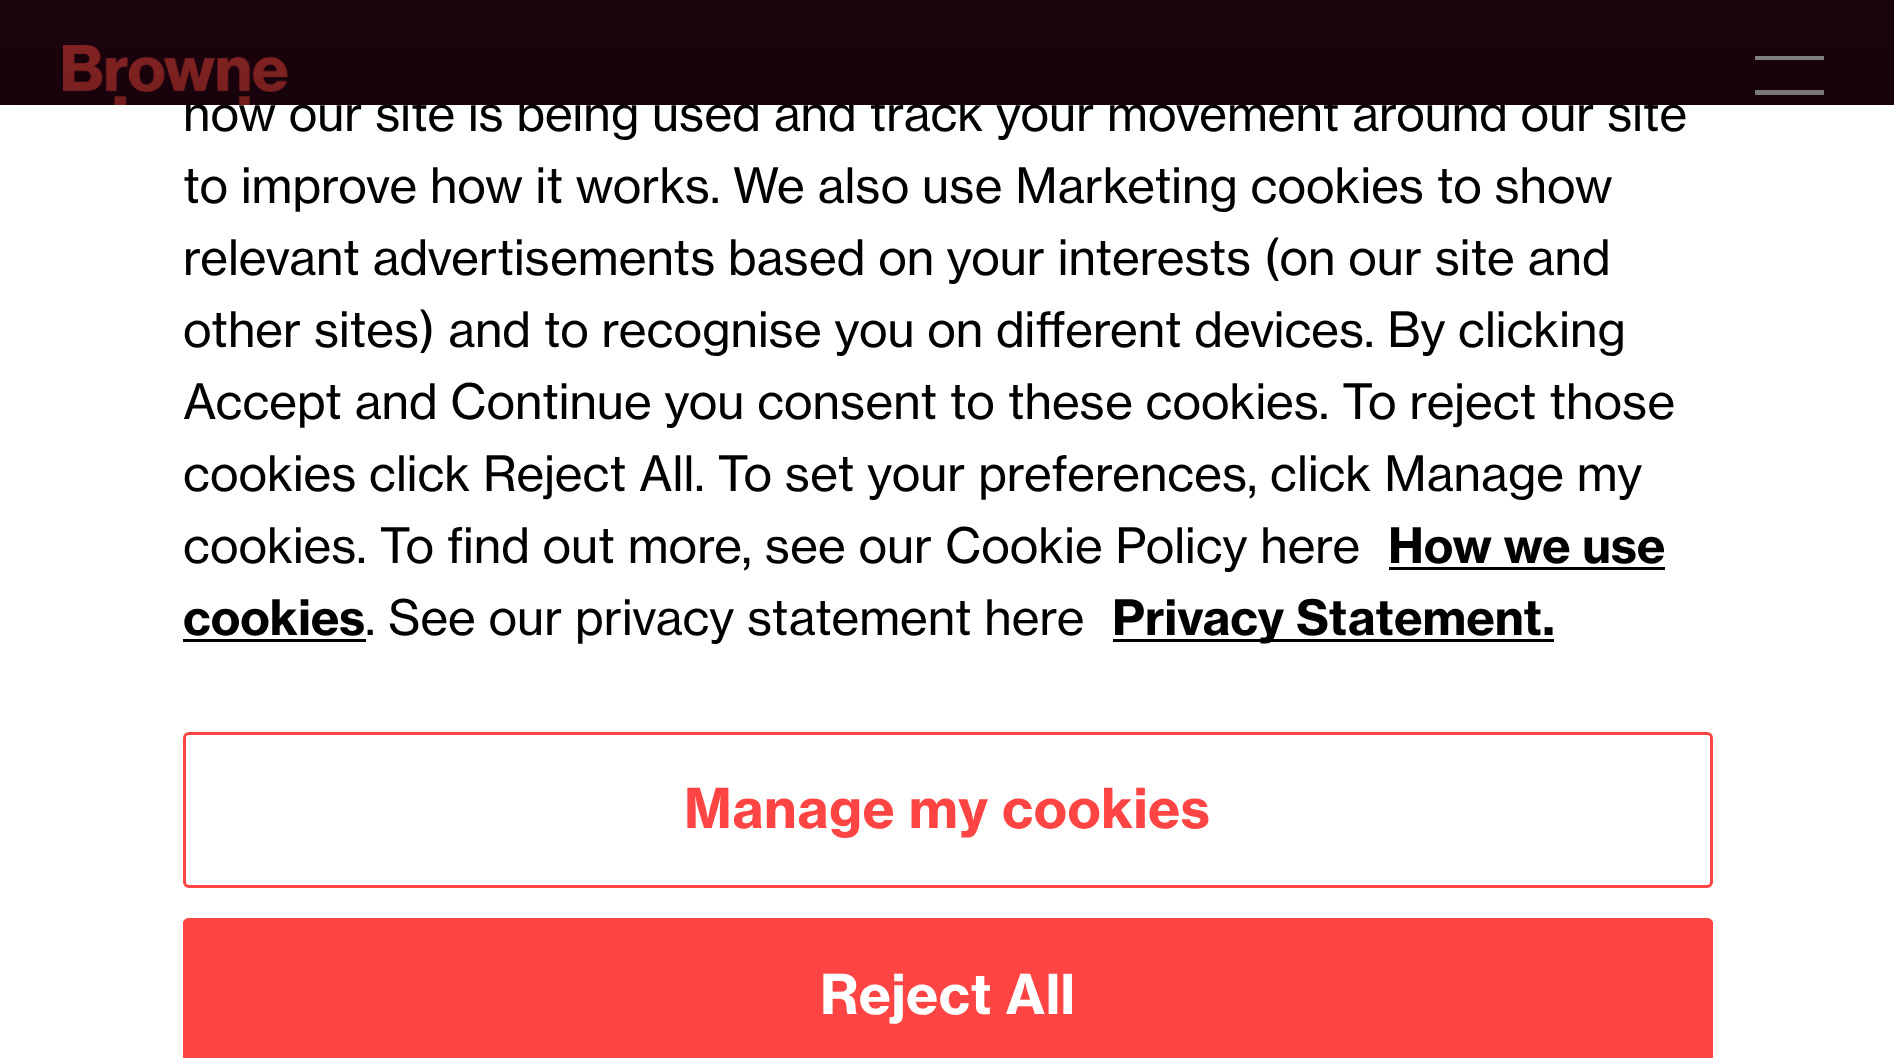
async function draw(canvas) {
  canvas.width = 1894
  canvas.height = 1058
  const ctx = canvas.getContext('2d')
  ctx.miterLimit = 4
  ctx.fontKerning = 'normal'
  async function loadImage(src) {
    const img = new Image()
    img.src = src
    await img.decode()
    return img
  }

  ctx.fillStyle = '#1a030d'
  ctx.fillRect(0, 0, 1894, 1058)
  ctx.drawImage(await loadImage('image0.png'), 63, 45, 226, 60)
  ctx.fillStyle = '#808080'
  ctx.beginPath()
  ctx.moveTo(1755, 56)
  ctx.lineTo(1824, 56)
  ctx.lineTo(1824, 60)
  ctx.lineTo(1755, 60)
  ctx.closePath()
  ctx.moveTo(1755, 90)
  ctx.lineTo(1824, 90)
  ctx.lineTo(1824, 95)
  ctx.lineTo(1755, 95)
  ctx.closePath()
  ctx.moveTo(1755, 124)
  ctx.lineTo(1824, 124)
  ctx.lineTo(1824, 129)
  ctx.lineTo(1755, 129)
  ctx.closePath()
  ctx.fill()
  ctx.fillStyle = '#00000033'
  ctx.filter = 'blur(27px)'
  ctx.beginPath()
  ctx.rect(0, 105, 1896, 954)
  ctx.fill()
  ctx.filter = 'none'
  ctx.fillStyle = '#fff'
  ctx.fillRect(0, 105, 1894, 953)
  ctx.save()
  ctx.beginPath()
  ctx.rect(183, 105, 1530, 597)
  ctx.clip()
  ctx.font = '48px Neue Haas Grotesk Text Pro'
  ctx.fillStyle = '#000'
  ctx.fillText('how our site is being used and track your movement around our site', 183, 131)
  ctx.restore()
  ctx.font = '48px Neue Haas Grotesk Text Pro'
  ctx.fillStyle = '#000'
  ctx.fillText('to improve how it works. We also use Marketing cookies to show', 183, 203)
  ctx.fillText('relevant advertisements based on your interests (on our site and', 183, 275)
  ctx.fillText('other sites) and to recognise you on different devices. By clicking', 183, 347)
  ctx.fillText('Accept and Continue you consent to these cookies. To reject those', 183, 419)
  ctx.fillText('cookies click Reject All. To set your preferences, click Manage my', 183, 491)
  ctx.fillText('cookies. To find out more, see our Cookie Policy here', 183, 563)
  ctx.font = 'bold 48px Neue Haas Grotesk Text Pro'
  ctx.fillText('How we use', 1388, 563)
  ctx.fillRect(1389, 567, 276, 3)
  ctx.fillText('cookies', 183, 635)
  ctx.fillRect(183, 639, 183, 3)
  ctx.font = '48px Neue Haas Grotesk Text Pro'
  ctx.fillText('. See our privacy statement here', 365, 635)
  ctx.fillRect(1113, 639, 441, 3)
  ctx.font = 'bold 48px Neue Haas Grotesk Text Pro'
  ctx.fillText('Privacy Statement.', 1112, 635)
  ctx.beginPath()
  ctx.roundRect(184.5, 733.5, 1527, 153, 4.5)
  ctx.strokeStyle = '#ff4543'
  ctx.lineWidth = 3
  ctx.stroke()
  ctx.letterSpacing = '0.5px'
  ctx.font = 'bold 54px Neue Haas Grotesk Text Pro'
  ctx.fillStyle = '#ff4543'
  ctx.fillText('Manage my cookies', 684, 828)
  ctx.beginPath()
  ctx.moveTo(189, 918)
  ctx.lineTo(1707, 918)
  ctx.bezierCurveTo(1710.5, 918, 1713, 920.5, 1713, 924)
  ctx.lineTo(1713, 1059)
  ctx.lineTo(183, 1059)
  ctx.lineTo(183, 924)
  ctx.bezierCurveTo(183, 920.5, 185.5, 918, 189, 918)
  ctx.closePath()
  ctx.fill()
  ctx.beginPath()
  ctx.roundRect(184.5, 919.5, 1527, 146, 4.5)
  ctx.stroke()
  ctx.fillStyle = '#fff'
  ctx.fillText('Reject All', 820, 1014)
}

draw(document.querySelector('canvas'))
